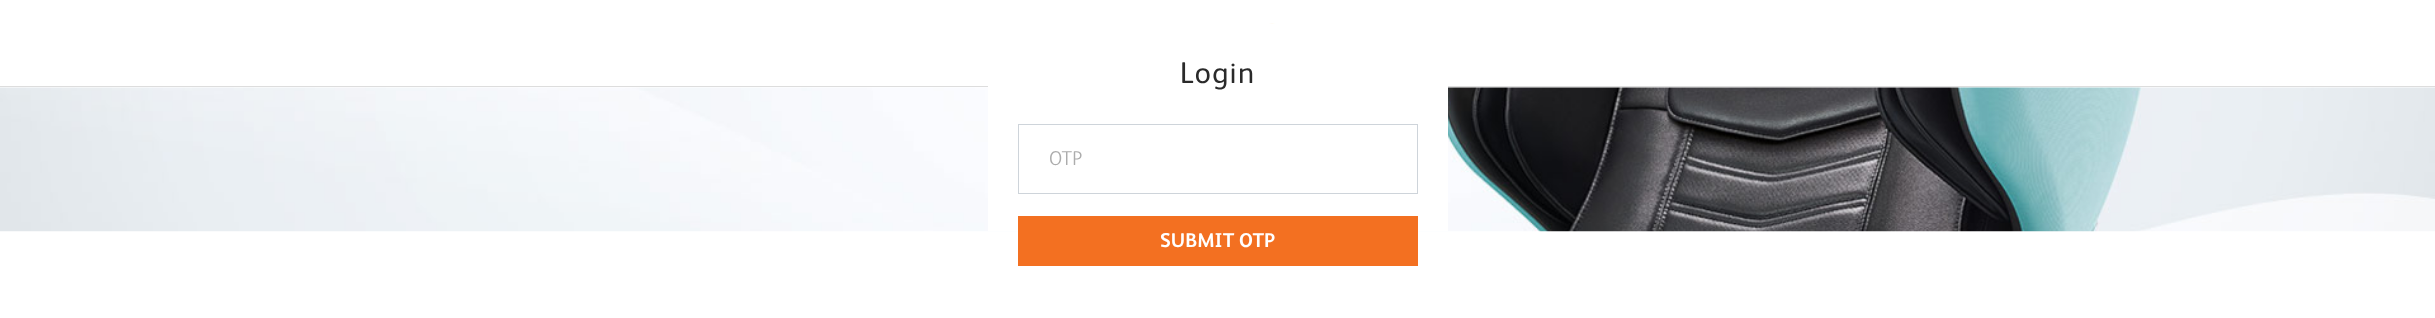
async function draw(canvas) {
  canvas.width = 2435
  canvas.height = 318
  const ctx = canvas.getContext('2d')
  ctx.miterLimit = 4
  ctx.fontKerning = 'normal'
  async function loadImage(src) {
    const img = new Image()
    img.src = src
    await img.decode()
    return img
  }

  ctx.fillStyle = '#fff'
  ctx.fillRect(0, 0, 2435, 318)
  ctx.fillStyle = '#ddd'
  ctx.fillRect(0, 86, 2435, 1)
  ctx.drawImage(await loadImage('image0.png'), 1269, 23, 7, 1)
  ctx.drawImage(await loadImage('image1.png'), 0, 87, 2435, 145)
  ctx.fillStyle = '#fff'
  ctx.fillRect(988, 86, 460, 145)
  ctx.letterSpacing = '1.25px'
  ctx.font = '30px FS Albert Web'
  ctx.fillStyle = '#2a2a2a'
  ctx.fillText('Login', 1180, 83)
  ctx.strokeStyle = '#ced4da'
  ctx.strokeRect(1018.5, 124.5, 399, 69)
  ctx.letterSpacing = '0px'
  ctx.font = '300 20px FS Albert Web'
  ctx.fillStyle = '#acacac'
  ctx.fillText('OTP', 1049, 165)
  ctx.fillStyle = '#f37021'
  ctx.fillRect(1018, 216, 400, 50)
  ctx.font = 'bold 20px FS Albert Web'
  ctx.fillStyle = '#fff'
  ctx.fillText('SUBMIT OTP', 1160, 247)
}

draw(document.querySelector('canvas'))
